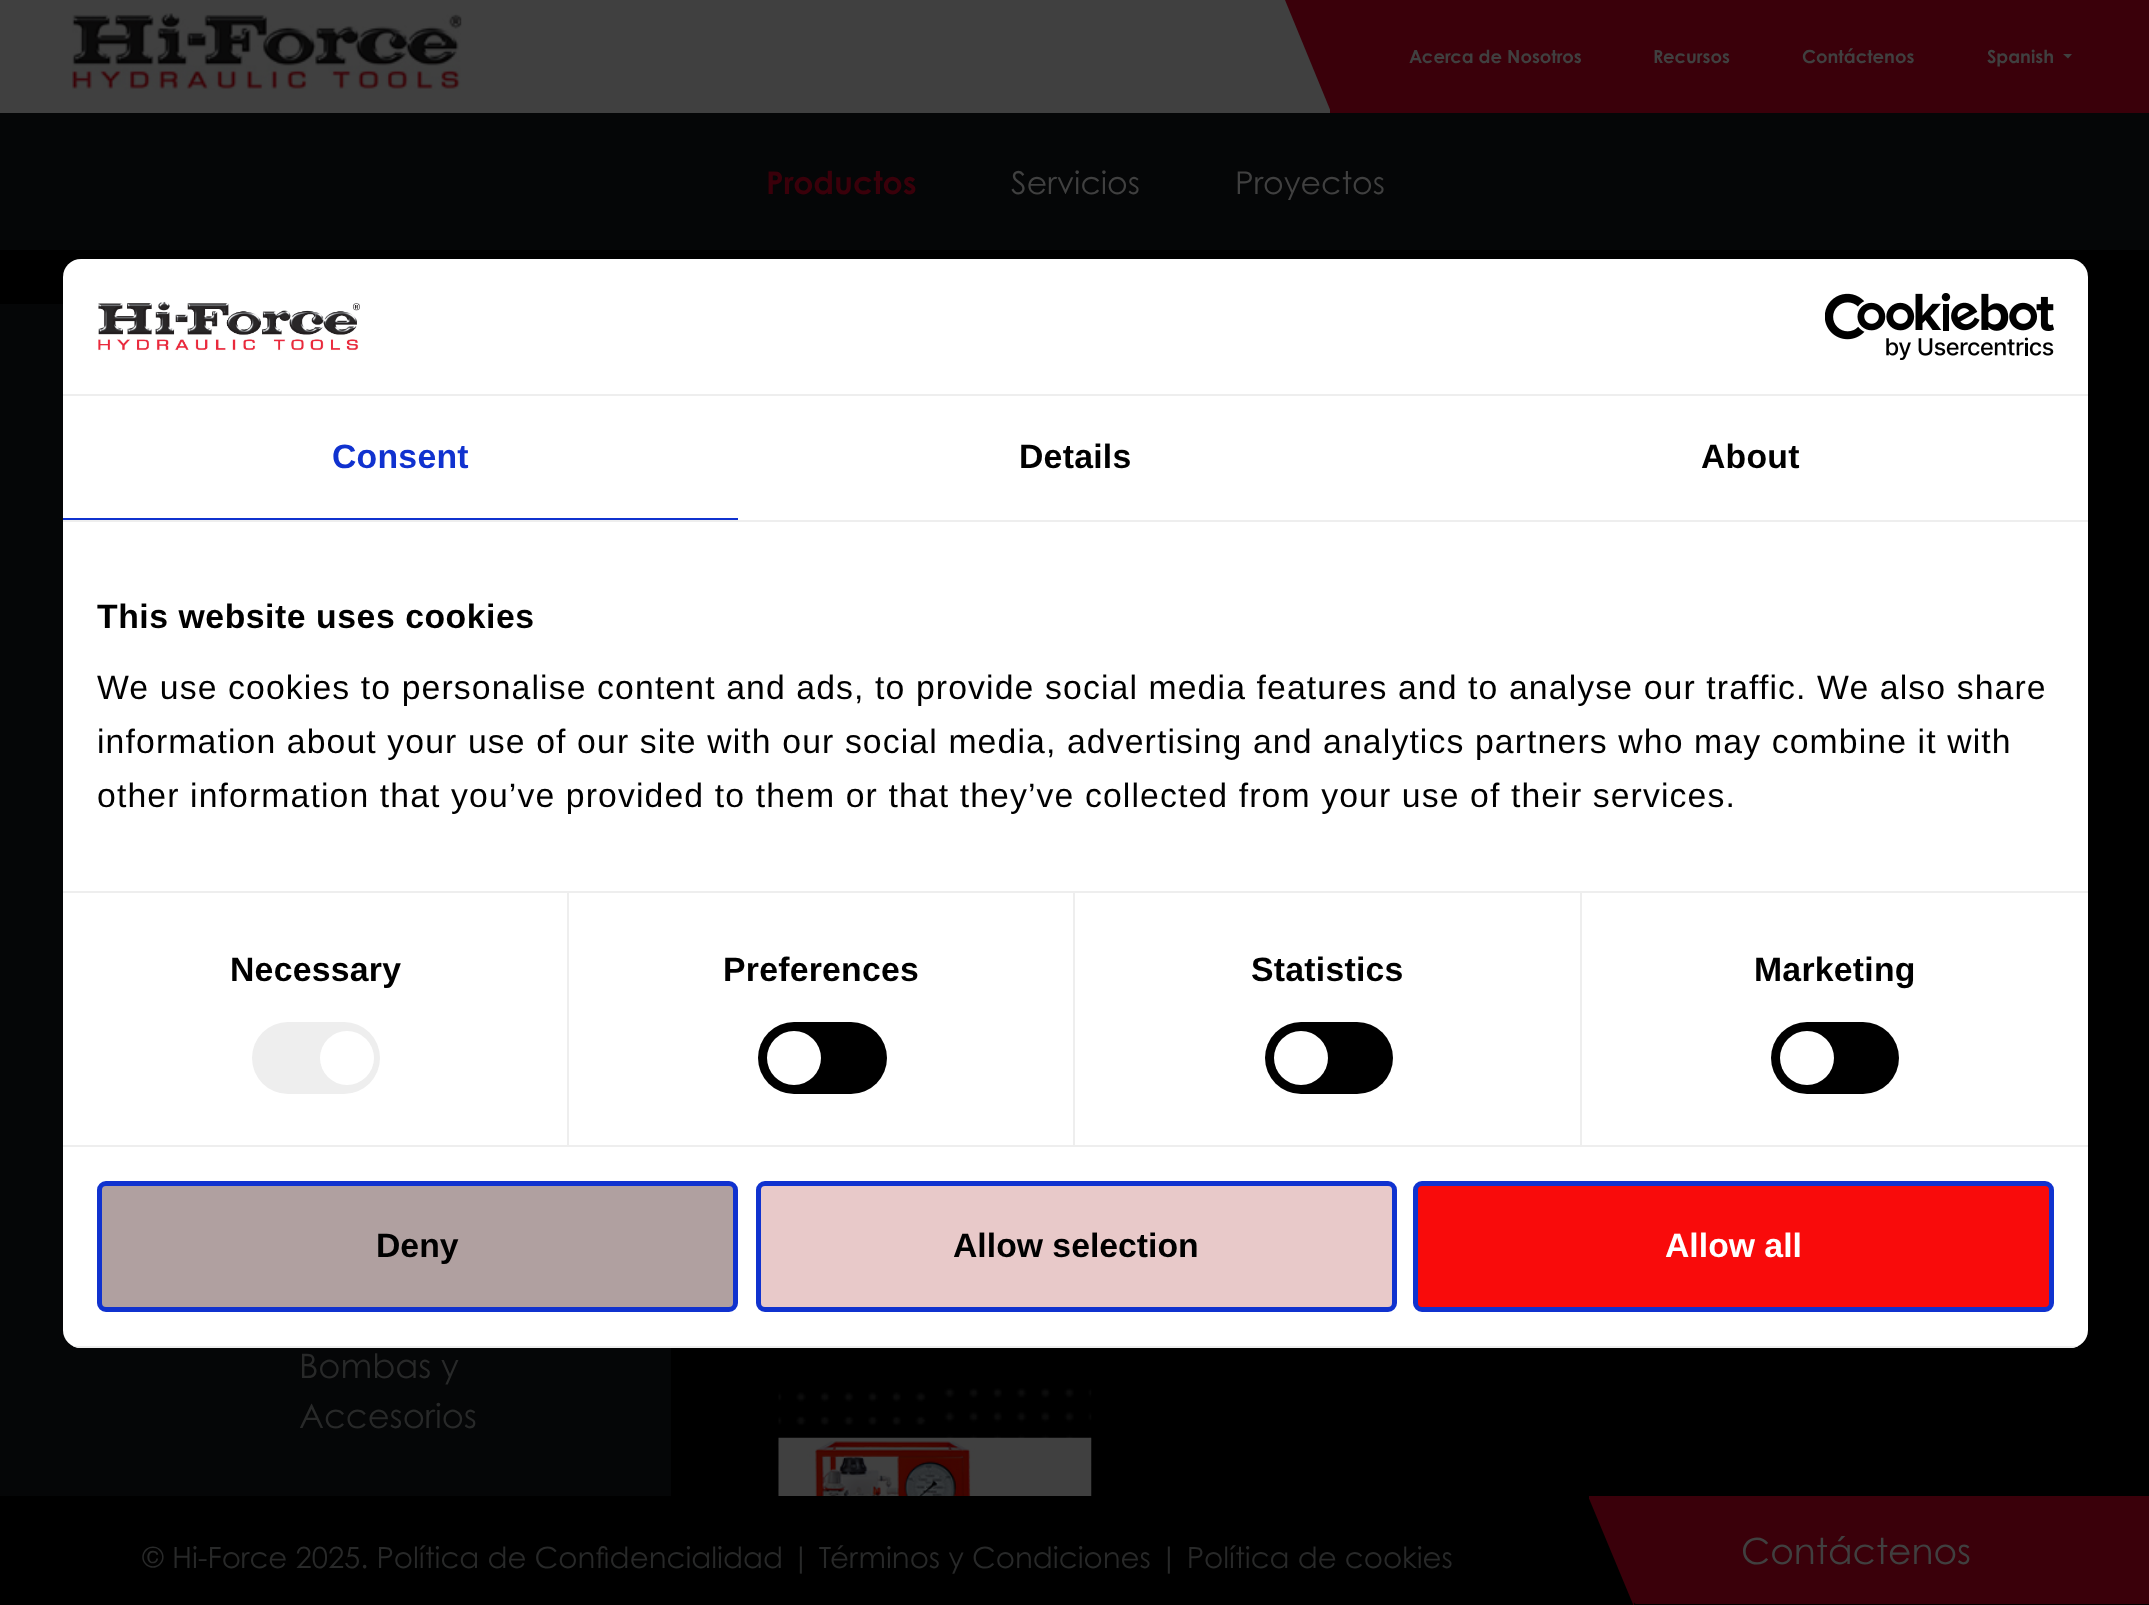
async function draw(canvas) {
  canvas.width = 2149
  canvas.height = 1605
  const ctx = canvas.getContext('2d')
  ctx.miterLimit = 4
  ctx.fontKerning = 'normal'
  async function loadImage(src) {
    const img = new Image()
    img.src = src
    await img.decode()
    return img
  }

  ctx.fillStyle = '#404040'
  ctx.fillRect(0, 0, 2149, 1605)
  ctx.drawImage(await loadImage('image0.png'), 72, 13, 390, 77)
  ctx.fillStyle = '#3a000a'
  ctx.fillRect(1330, 0, 819, 113)
  ctx.beginPath()
  ctx.moveTo(1285, 0)
  ctx.lineTo(1331, 0)
  ctx.lineTo(1331, 112)
  ctx.closePath()
  ctx.fill()
  ctx.font = 'bold 18px Century Gothic'
  ctx.fillStyle = '#404040'
  ctx.fillText('Acerca de Nosotros', 1409, 63)
  ctx.fillText('Recursos', 1653, 63)
  ctx.fillText('Contáctenos', 1802, 63)
  ctx.fillText('Spanish', 1987, 63)
  ctx.beginPath()
  ctx.moveTo(2063, 54)
  ctx.lineTo(2072, 54)
  ctx.lineTo(2068, 58.5)
  ctx.closePath()
  ctx.fill()
  ctx.fillStyle = '#050607'
  ctx.fillRect(0, 113, 2149, 137)
  ctx.font = 'bold 31.5px Century Gothic'
  ctx.fillStyle = '#3a000a'
  ctx.fillText('Productos', 766, 194)
  ctx.font = '31.5px Century Gothic'
  ctx.fillStyle = '#404040'
  ctx.fillText('Servicios', 1011, 194)
  ctx.fillText('Proyectos', 1235, 194)
  ctx.fillStyle = '#000'
  ctx.fillRect(0, 250, 2149, 1355)
  ctx.fillStyle = '#050607'
  ctx.fillRect(266, 1348, 405, 148)
  ctx.fillRect(0, 304, 266, 1192)
  ctx.font = '33.75px Century Gothic'
  ctx.fillStyle = '#282929'
  ctx.fillText('Bombas y', 299, 1378)
  ctx.fillText('Accesorios', 299, 1428)
  ctx.drawImage(await loadImage('image1.png'), 778, 1388, 314, 108)
  ctx.drawImage(await loadImage('image2.png'), 778, 1437, 314, 59)
  ctx.font = '29.25px Century Gothic'
  ctx.fillText('© Hi-Force 2025. Política de Confidencialidad | Términos y Condiciones | Política de cookies', 142, 1568)
  ctx.fillStyle = '#3a000a'
  ctx.beginPath()
  ctx.moveTo(1634, 1496)
  ctx.lineTo(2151, 1496)
  ctx.lineTo(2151, 1604)
  ctx.lineTo(1636, 1604)
  ctx.bezierCurveTo(1635, 1604, 1634, 1603, 1634, 1602)
  ctx.closePath()
  ctx.fill()
  ctx.save()
  ctx.beginPath()
  ctx.rect(1589, 1496, 45, 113)
  ctx.clip()
  ctx.beginPath()
  ctx.moveTo(1588, 1496)
  ctx.lineTo(1635, 1496)
  ctx.lineTo(1635, 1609)
  ctx.closePath()
  ctx.fill()
  ctx.restore()
  ctx.font = '36px Century Gothic'
  ctx.fillStyle = '#404040'
  ctx.fillText('Contáctenos', 1741, 1564)
  ctx.fillStyle = '#fff'
  ctx.beginPath()
  ctx.roundRect(63, 259, 2025, 1089, 18)
  ctx.fill()
  ctx.fillStyle = '#eee'
  ctx.fillRect(63, 394, 2025, 2)
  ctx.drawImage(await loadImage('image3.png'), 98, 301, 262, 50)
  ctx.drawImage(await loadImage('image4.png'), 1825, 293, 229, 67)
  ctx.fillRect(63, 520, 2025, 2)
  ctx.fillStyle = '#1032cf'
  ctx.fillRect(63, 518, 675, 2)
  ctx.letterSpacing = '0.25px'
  ctx.font = 'bold 33.75px Liberation Sans'
  ctx.fillText('Consent', 332, 468)
  ctx.fillStyle = '#000'
  ctx.fillText('Details', 1019, 468)
  ctx.fillText('About', 1701, 468)
  ctx.fillStyle = '#eee'
  ctx.fillRect(63, 891, 2025, 2)
  ctx.letterSpacing = '0.55px'
  ctx.fillStyle = '#000'
  ctx.fillText('This website uses cookies', 97, 628)
  ctx.letterSpacing = '1.12px'
  ctx.font = '33.75px Liberation Sans'
  ctx.fillText('We use cookies to personalise content and ads, to provide social media features and to analyse our traffic. We also share', 97, 699)
  ctx.fillText('information about your use of our site with our social media, advertising and analytics partners who may combine it with', 97, 753)
  ctx.fillText('other information that you’ve provided to them or that they’ve collected from your use of their services.', 97, 807)
  ctx.fillStyle = '#eee'
  ctx.fillRect(63, 1145, 2025, 2)
  ctx.fillRect(567, 893, 2, 252)
  ctx.letterSpacing = '0.25px'
  ctx.font = 'bold 33.75px Liberation Sans'
  ctx.fillStyle = '#000'
  ctx.fillText('Necessary', 230, 981)
  ctx.fillStyle = '#eee'
  ctx.beginPath()
  ctx.roundRect(252, 1022, 128, 72, 36)
  ctx.fill()
  ctx.fillStyle = '#fff'
  ctx.beginPath()
  ctx.arc(347, 1058, 27, 0, 2 * Math.PI)
  ctx.fill()
  ctx.fillStyle = '#eee'
  ctx.fillRect(1073, 893, 2, 252)
  ctx.fillStyle = '#000'
  ctx.fillText('Preferences', 723, 981)
  ctx.beginPath()
  ctx.roundRect(758, 1022, 129, 72, 36)
  ctx.fill()
  ctx.fillStyle = '#fff'
  ctx.beginPath()
  ctx.arc(794, 1058, 27, 0, 2 * Math.PI)
  ctx.fill()
  ctx.fillStyle = '#eee'
  ctx.fillRect(1580, 893, 2, 252)
  ctx.fillStyle = '#000'
  ctx.fillText('Statistics', 1251, 981)
  ctx.beginPath()
  ctx.roundRect(1265, 1022, 128, 72, 36)
  ctx.fill()
  ctx.fillStyle = '#fff'
  ctx.beginPath()
  ctx.arc(1301, 1058, 27, 0, 2 * Math.PI)
  ctx.fill()
  ctx.fillStyle = '#000'
  ctx.fillText('Marketing', 1754, 981)
  ctx.beginPath()
  ctx.roundRect(1771, 1022, 128, 72, 36)
  ctx.fill()
  ctx.fillStyle = '#fff'
  ctx.beginPath()
  ctx.arc(1807, 1058, 27, 0, 2 * Math.PI)
  ctx.fill()
  ctx.save()
  ctx.beginPath()
  ctx.roundRect(63, 259, 2025, 1089, 18)
  ctx.clip()
  ctx.fillStyle = '#eee'
  ctx.fillRect(73, 1346, 2005, 2)
  ctx.restore()
  ctx.fillStyle = '#b0a0a0'
  ctx.beginPath()
  ctx.roundRect(99.5, 1183.5, 636, 126, 6.5)
  ctx.fill()
  ctx.strokeStyle = '#1032cf'
  ctx.lineWidth = 5
  ctx.stroke()
  ctx.letterSpacing = '0px'
  ctx.fillStyle = '#000'
  ctx.fillText('Deny', 376, 1257)
  ctx.fillStyle = '#e8c9c9'
  ctx.beginPath()
  ctx.roundRect(758.5, 1183.5, 636, 126, 6.5)
  ctx.fill()
  ctx.stroke()
  ctx.fillStyle = '#000'
  ctx.fillText('Allow selection', 953, 1257)
  ctx.fillStyle = '#f90b0b'
  ctx.beginPath()
  ctx.roundRect(1415.5, 1183.5, 636, 126, 6.5)
  ctx.fill()
  ctx.stroke()
  ctx.fillStyle = '#fff'
  ctx.fillText('Allow all', 1665, 1257)
}

draw(document.querySelector('canvas'))
